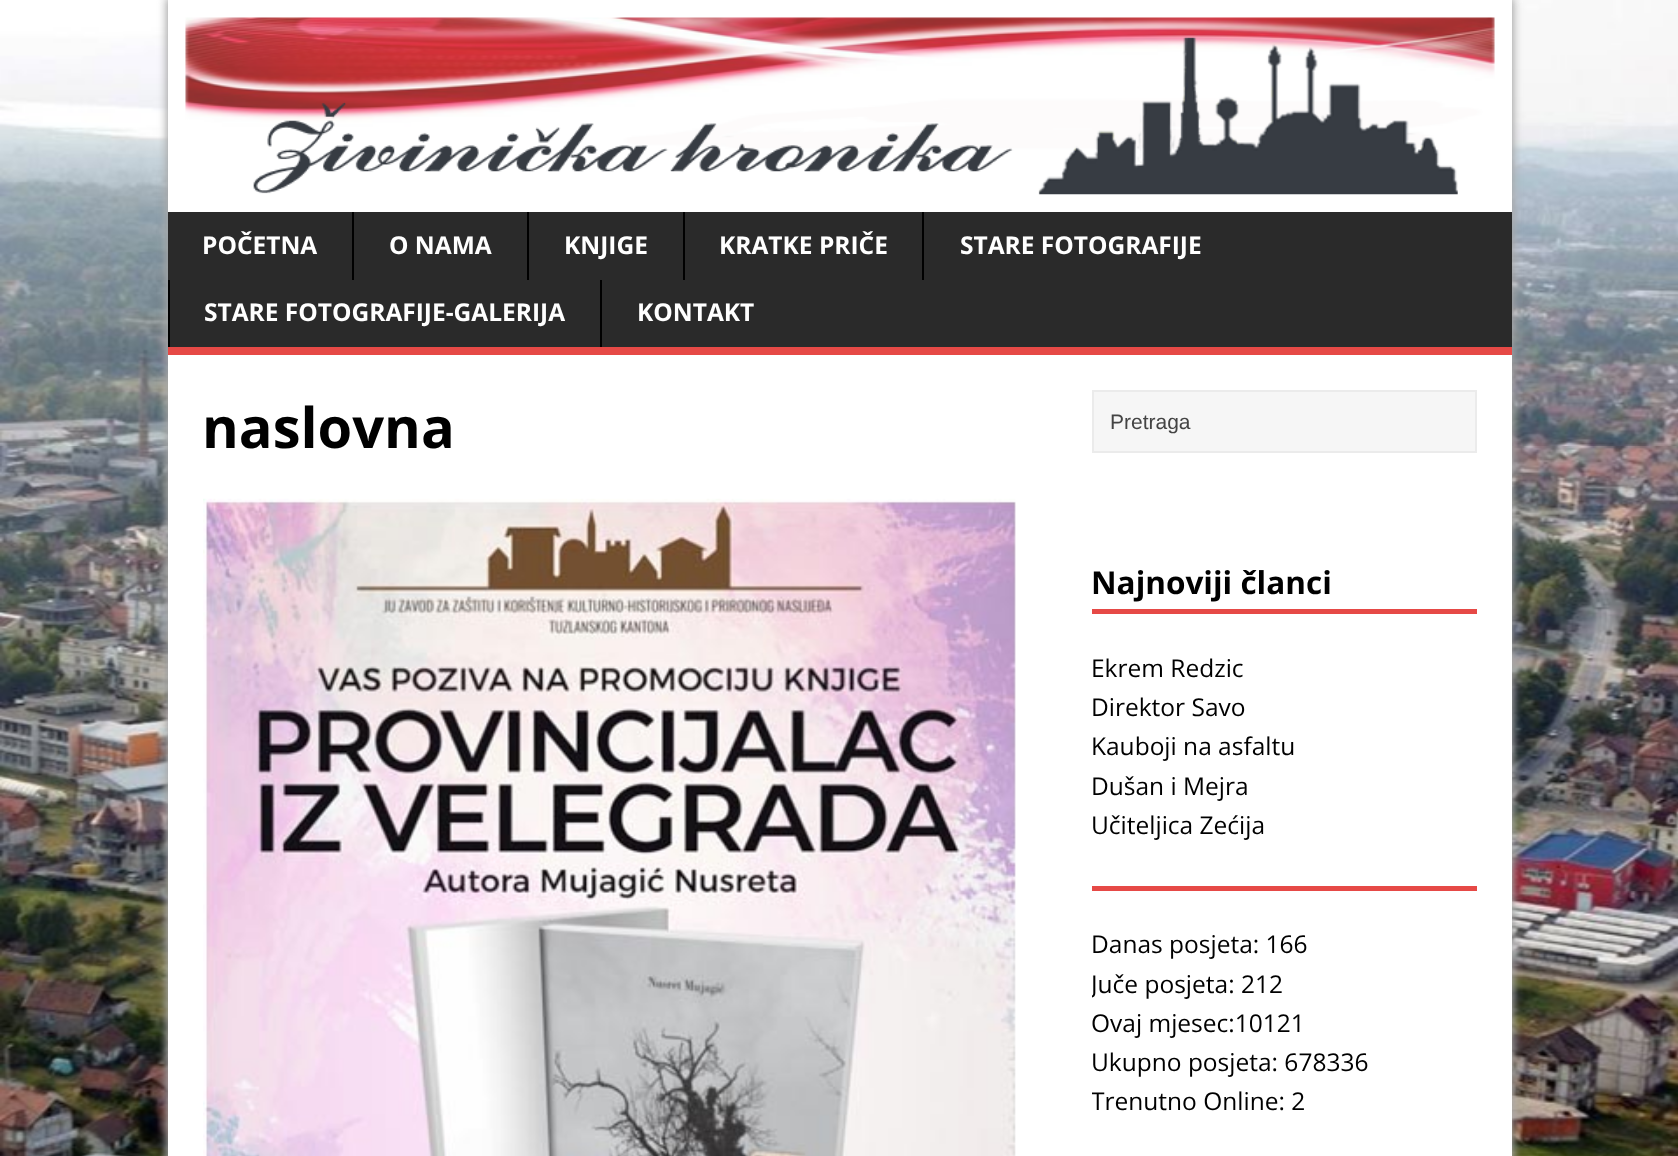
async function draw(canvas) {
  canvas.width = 1678
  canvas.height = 1156
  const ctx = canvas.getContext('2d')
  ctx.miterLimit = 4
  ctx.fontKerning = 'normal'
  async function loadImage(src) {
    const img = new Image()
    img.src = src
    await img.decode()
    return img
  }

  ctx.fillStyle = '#fff'
  ctx.fillRect(0, 0, 1678, 1156)
  ctx.drawImage(await loadImage('image0.png'), 0, 0, 1678, 1156)
  ctx.fillStyle = '#a8a8a8'
  ctx.filter = 'blur(4.5px)'
  ctx.beginPath()
  ctx.rect(166, -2, 1348, 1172)
  ctx.fill()
  ctx.filter = 'none'
  ctx.fillStyle = '#fff'
  ctx.fillRect(168, 0, 1344, 212)
  ctx.drawImage(await loadImage('image1.png'), 185, 17, 1310, 178)
  ctx.fillStyle = '#2a2a2a'
  ctx.fillRect(168, 212, 1344, 135)
  ctx.fillStyle = '#e64946'
  ctx.fillRect(168, 347, 1344, 8)
  ctx.font = 'bold 24.5px Open Sans'
  ctx.fillStyle = '#fff'
  ctx.fillText('POČETNA', 202, 254)
  ctx.fillStyle = '#000'
  ctx.fillRect(352, 212, 2, 68)
  ctx.fillStyle = '#fff'
  ctx.fillText('O NAMA', 389, 254)
  ctx.fillStyle = '#000'
  ctx.fillRect(527, 212, 2, 68)
  ctx.fillStyle = '#fff'
  ctx.fillText('KNJIGE', 564, 254)
  ctx.fillStyle = '#000'
  ctx.fillRect(683, 212, 2, 68)
  ctx.fillStyle = '#fff'
  ctx.fillText('KRATKE PRIČE', 719, 254)
  ctx.fillStyle = '#000'
  ctx.fillRect(922, 212, 2, 68)
  ctx.fillStyle = '#fff'
  ctx.fillText('STARE FOTOGRAFIJE', 960, 254)
  ctx.fillStyle = '#000'
  ctx.fillRect(168, 280, 2, 67)
  ctx.fillStyle = '#fff'
  ctx.fillText('STARE FOTOGRAFIJE-GALERIJA', 204, 321)
  ctx.fillStyle = '#000'
  ctx.fillRect(600, 280, 2, 67)
  ctx.fillStyle = '#fff'
  ctx.fillText('KONTAKT', 637, 321)
  ctx.fillRect(168, 355, 1344, 801)
  ctx.font = 'bold 56px Open Sans'
  ctx.fillStyle = '#000'
  ctx.fillText('naslovna', 202, 448)
  ctx.drawImage(await loadImage('image2.png'), 203, 498, 813, 658)
  ctx.fillStyle = '#f6f6f6'
  ctx.beginPath()
  ctx.rect(1093, 391, 383, 61)
  ctx.fill()
  ctx.strokeStyle = '#ebebeb'
  ctx.lineWidth = 2
  ctx.stroke()
  ctx.font = '21px Liberation Sans'
  ctx.fillStyle = '#444'
  ctx.fillText('Pretraga', 1110, 429)
  ctx.fillStyle = '#e64946'
  ctx.fillRect(1092, 609, 385, 5)
  ctx.font = 'bold 31.5px Open Sans'
  ctx.fillStyle = '#000'
  ctx.fillText('Najnoviji članci', 1091, 594)
  ctx.font = '24.5px Open Sans'
  ctx.fillText('Ekrem Redzic', 1091, 677)
  ctx.fillText('Direktor Savo', 1091, 716)
  ctx.fillText('Kauboji na asfaltu', 1091, 755)
  ctx.fillText('Dušan i Mejra', 1091, 795)
  ctx.fillText('Učiteljica Zećija', 1091, 834)
  ctx.fillStyle = '#e64946'
  ctx.fillRect(1092, 886, 385, 5)
  ctx.fillStyle = '#000'
  ctx.fillText('Danas posjeta: 166', 1091, 953)
  ctx.save()
  ctx.beginPath()
  ctx.rect(1092, 880, 385, 242)
  ctx.clip()
  ctx.fillText('Juče posjeta: 212', 1091, 993)
  ctx.restore()
  ctx.fillText('Ovaj mjesec:10121', 1091, 1032)
  ctx.fillText('Ukupno posjeta: 678336', 1091, 1071)
  ctx.save()
  ctx.beginPath()
  ctx.rect(1092, 880, 385, 242)
  ctx.clip()
  ctx.fillText('Trenutno Online: 2', 1091, 1110)
  ctx.restore()
}

draw(document.querySelector('canvas'))
